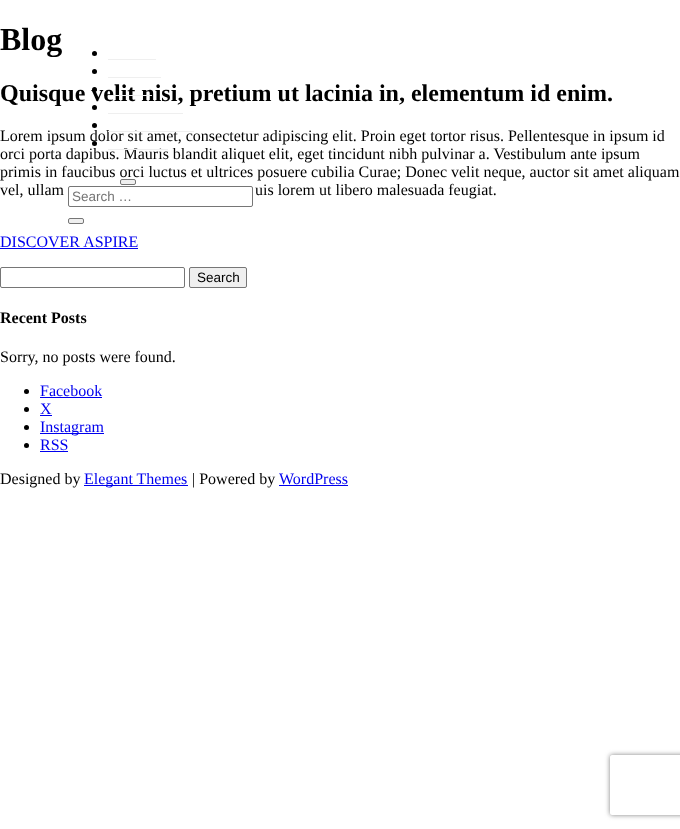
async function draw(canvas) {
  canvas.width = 680
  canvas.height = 829
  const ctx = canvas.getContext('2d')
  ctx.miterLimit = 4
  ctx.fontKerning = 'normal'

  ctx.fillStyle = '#fff'
  ctx.fillRect(0, 0, 680, 829)
  ctx.font = 'bold 32px Liberation Serif'
  ctx.fillStyle = '#000'
  ctx.fillText('Blog', 0, 50)
  ctx.font = 'bold 24px Liberation Serif'
  ctx.fillText('Quisque velit nisi, pretium ut lacinia in, elementum id enim.', 0, 101)
  ctx.font = '16px Liberation Serif'
  ctx.fillText('Lorem ipsum dolor sit amet, consectetur adipiscing elit. Proin eget tortor risus. Pellentesque in ipsum id', 0, 141)
  ctx.fillText('orci porta dapibus. Mauris blandit aliquet elit, eget tincidunt nibh pulvinar a. Vestibulum ante ipsum', 0, 159)
  ctx.fillText('primis in faucibus orci luctus et ultrices posuere cubilia Curae; Donec velit neque, auctor sit amet aliquam', 0, 177)
  ctx.fillText('vel, ullam', 0, 195)
  ctx.fillText('uis lorem ut libero malesuada feugiat.', 255, 195)
  ctx.fillStyle = '#00e'
  ctx.fillText('DISCOVER ASPIRE', 0, 247)
  ctx.fillRect(0, 248, 138, 1)
  ctx.beginPath()
  ctx.roundRect(0.5, 267.5, 184, 20, 1.5)
  ctx.strokeStyle = '#767676'
  ctx.stroke()
  ctx.fillStyle = '#efefef'
  ctx.beginPath()
  ctx.roundRect(189.5, 267.5, 57, 20, 1.5)
  ctx.fill()
  ctx.stroke()
  ctx.font = '13.5px Liberation Sans'
  ctx.fillStyle = '#000'
  ctx.fillText('Search', 197, 282)
  ctx.font = 'bold 16px Liberation Serif'
  ctx.fillText('Recent Posts', 0, 323)
  ctx.font = '16px Liberation Serif'
  ctx.fillText('Sorry, no posts were found.', 0, 362)
  ctx.beginPath()
  ctx.arc(26.5, 391.5, 2.5, 0, 2 * Math.PI)
  ctx.fill()
  ctx.fillStyle = '#00e'
  ctx.fillText('Facebook', 40, 396)
  ctx.fillRect(40, 397, 62, 1)
  ctx.fillStyle = '#000'
  ctx.beginPath()
  ctx.arc(26.5, 409.5, 2.5, 0, 2 * Math.PI)
  ctx.fill()
  ctx.fillStyle = '#00e'
  ctx.fillText('X', 40, 414)
  ctx.fillRect(40, 415, 12, 1)
  ctx.fillStyle = '#000'
  ctx.beginPath()
  ctx.arc(26.5, 427.5, 2.5, 0, 2 * Math.PI)
  ctx.fill()
  ctx.fillStyle = '#00e'
  ctx.fillRect(40, 433, 64, 1)
  ctx.fillText('Instagram', 40, 432)
  ctx.fillStyle = '#000'
  ctx.beginPath()
  ctx.arc(26.5, 445.5, 2.5, 0, 2 * Math.PI)
  ctx.fill()
  ctx.fillStyle = '#00e'
  ctx.fillText('RSS', 40, 450)
  ctx.fillRect(40, 451, 28, 1)
  ctx.fillStyle = '#000'
  ctx.fillText('Designed by', 0, 484)
  ctx.fillStyle = '#00e'
  ctx.fillRect(84, 485, 104, 1)
  ctx.fillText('Elegant Themes', 84, 484)
  ctx.fillStyle = '#000'
  ctx.fillText('| Powered by', 192, 484)
  ctx.fillStyle = '#00e'
  ctx.fillText('WordPress', 279, 484)
  ctx.fillRect(279, 485, 69, 1)
  ctx.fillStyle = '#000'
  ctx.beginPath()
  ctx.arc(94.5, 53.5, 2.5, 0, 2 * Math.PI)
  ctx.fill()
  ctx.fillStyle = '#efefef'
  ctx.fillRect(108, 59, 48, 1)
  ctx.fillStyle = '#000'
  ctx.beginPath()
  ctx.arc(94.5, 71.5, 2.5, 0, 2 * Math.PI)
  ctx.fill()
  ctx.fillStyle = '#efefef'
  ctx.fillRect(108, 77, 53, 1)
  ctx.fillStyle = '#000'
  ctx.beginPath()
  ctx.arc(94.5, 89.5, 2.5, 0, 2 * Math.PI)
  ctx.fill()
  ctx.fillStyle = '#efefef'
  ctx.fillRect(108, 95, 44, 1)
  ctx.fillStyle = '#000'
  ctx.beginPath()
  ctx.arc(94.5, 107.5, 2.5, 0, 2 * Math.PI)
  ctx.fill()
  ctx.fillStyle = '#efefef'
  ctx.fillRect(108, 113, 75, 1)
  ctx.fillStyle = '#000'
  ctx.beginPath()
  ctx.arc(94.5, 125.5, 2.5, 0, 2 * Math.PI)
  ctx.fill()
  ctx.fillStyle = '#efefef'
  ctx.fillRect(108, 131, 86, 1)
  ctx.fillStyle = '#000'
  ctx.beginPath()
  ctx.arc(94.5, 143.5, 2.5, 0, 2 * Math.PI)
  ctx.fill()
  ctx.fillStyle = '#efefef'
  ctx.fillRect(108, 149, 60, 1)
  ctx.beginPath()
  ctx.roundRect(120.5, 179.5, 15, 5, 1.5)
  ctx.fill()
  ctx.stroke()
  ctx.beginPath()
  ctx.roundRect(68.5, 186.5, 184, 20, 1.5)
  ctx.stroke()
  ctx.font = '13.5px Liberation Sans'
  ctx.fillStyle = '#757575'
  ctx.fillText('Search …', 72, 201)
  ctx.fillStyle = '#efefef'
  ctx.beginPath()
  ctx.roundRect(68.5, 218.5, 15, 5, 1.5)
  ctx.fill()
  ctx.stroke()
  ctx.save()
  ctx.beginPath()
  ctx.moveTo(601, 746)
  ctx.lineTo(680, 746)
  ctx.lineTo(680, 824)
  ctx.lineTo(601, 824)
  ctx.closePath()
  ctx.moveTo(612, 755)
  ctx.lineTo(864, 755)
  ctx.bezierCurveTo(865, 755, 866, 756, 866, 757)
  ctx.lineTo(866, 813)
  ctx.bezierCurveTo(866, 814, 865, 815, 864, 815)
  ctx.lineTo(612, 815)
  ctx.bezierCurveTo(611, 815, 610, 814, 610, 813)
  ctx.lineTo(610, 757)
  ctx.bezierCurveTo(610, 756, 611, 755, 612, 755)
  ctx.closePath()
  ctx.clip('evenodd')
  ctx.fillStyle = '#808080'
  ctx.filter = 'blur(2.5px)'
  ctx.beginPath()
  ctx.roundRect(610, 755, 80, 60, 2)
  ctx.fill()
  ctx.filter = 'none'
  ctx.restore()
}

draw(document.querySelector('canvas'))
